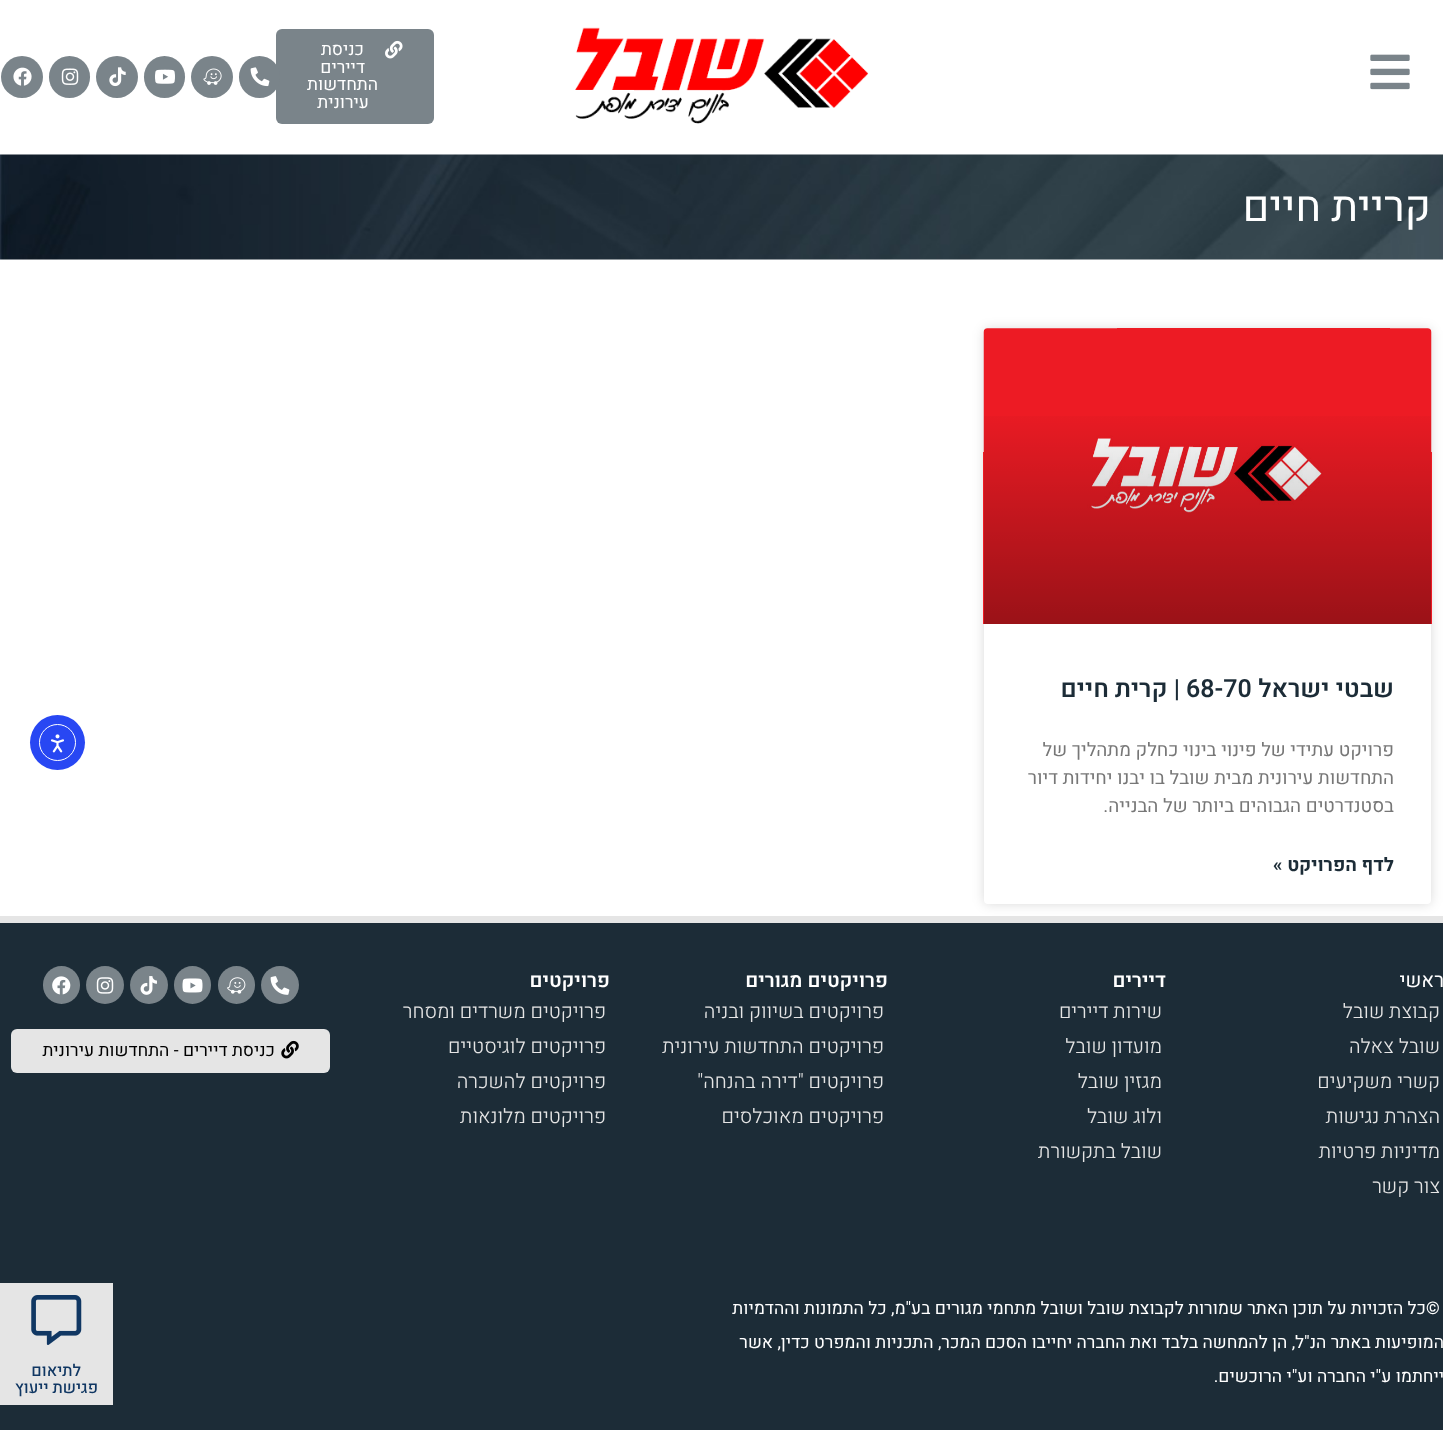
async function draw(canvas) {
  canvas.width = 1443
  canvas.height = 1430
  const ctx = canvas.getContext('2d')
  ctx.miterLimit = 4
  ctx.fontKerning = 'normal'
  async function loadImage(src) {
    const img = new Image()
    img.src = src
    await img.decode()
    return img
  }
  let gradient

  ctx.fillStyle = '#fff'
  ctx.fillRect(0, 0, 1443, 1430)
  ctx.drawImage(await loadImage('image0.png'), 1370, 54, 40, 36)
  ctx.drawImage(await loadImage('image1.png'), 575, 27, 294, 97)
  ctx.fillStyle = '#7a848a'
  ctx.beginPath()
  ctx.roundRect(276, 29, 158, 95, 6)
  ctx.fill()
  ctx.drawImage(await loadImage('image2.png'), 385, 40, 18, 19)
  ctx.direction = 'rtl'
  ctx.font = '17.5px Heebo'
  ctx.fillStyle = '#fff'
  ctx.fillText('כניסת', 364, 55)
  ctx.fillText('דיירים', 365, 73)
  ctx.fillText('התחדשות', 378, 90)
  ctx.fillText('עירונית', 369, 108)
  ctx.fillStyle = '#7a848a'
  ctx.beginPath()
  ctx.roundRect(239, 56, 41, 42, 20.5)
  ctx.fill()
  ctx.drawImage(await loadImage('image3.png'), 250, 67, 20, 20)
  ctx.beginPath()
  ctx.arc(212, 77, 21, 0, 2 * Math.PI)
  ctx.fill()
  ctx.drawImage(await loadImage('image4.png'), 203, 68, 19, 17)
  ctx.beginPath()
  ctx.roundRect(144, 56, 41, 42, 20.5)
  ctx.fill()
  ctx.drawImage(await loadImage('image5.png'), 155, 69, 20, 15)
  ctx.beginPath()
  ctx.arc(117, 77, 21, 0, 2 * Math.PI)
  ctx.fill()
  ctx.drawImage(await loadImage('image6.png'), 109, 67, 17, 20)
  ctx.beginPath()
  ctx.roundRect(49, 56, 41, 42, 20.5)
  ctx.fill()
  ctx.drawImage(await loadImage('image7.png'), 61, 68, 18, 17)
  ctx.beginPath()
  ctx.arc(22, 77, 21, 0, 2 * Math.PI)
  ctx.fill()
  ctx.drawImage(await loadImage('image8.png'), 13, 67, 19, 19)
  ctx.drawImage(await loadImage('image9.png'), 0, 154, 1443, 106)
  ctx.font = '42.5px Heebo'
  ctx.fillStyle = '#fff'
  ctx.fillText('קריית חיים', 1431, 221)
  ctx.fillStyle = '#00000026'
  ctx.filter = 'blur(6px)'
  ctx.beginPath()
  ctx.roundRect(984, 329, 447, 575, 4)
  ctx.fill()
  ctx.filter = 'none'
  ctx.fillStyle = '#fff'
  ctx.beginPath()
  ctx.roundRect(984, 329, 447, 575, 4)
  ctx.fill()
  ctx.drawImage(await loadImage('image10.png'), 983, 328, 449, 296)
  gradient = ctx.createLinearGradient(1208, 624, 1208, 329)
  gradient.addColorStop(0, '#00000059')
  gradient.addColorStop(0.75, '#00000000')
  ctx.fillStyle = gradient
  ctx.fillRect(984, 416, 447, 208)
  ctx.font = '600 25px Heebo'
  ctx.fillStyle = '#1c2c37'
  ctx.fillText('שבטי ישראל', 1394, 697)
  ctx.direction = 'ltr'
  ctx.fillText('68-70', 1186, 697)
  ctx.direction = 'rtl'
  ctx.fillText('| קרית חיים', 1180, 697)
  ctx.font = '18.75px Heebo'
  ctx.fillStyle = '#777'
  ctx.fillText('פרויקט עתידי של פינוי בינוי כחלק מתהליך של', 1394, 756)
  ctx.fillText('התחדשות עירונית מבית שובל בו יבנו יחידות דיור', 1394, 784)
  ctx.fillText('בסטנדרטים הגבוהים ביותר של הבנייה.', 1394, 812)
  ctx.font = 'bold 18.75px Heebo'
  ctx.fillStyle = '#1c2c37'
  ctx.fillText('לדף הפרויקט »', 1394, 871)
  ctx.fillStyle = '#2847f3'
  ctx.beginPath()
  ctx.arc(57.5, 742.5, 27.5, 0, 2 * Math.PI)
  ctx.fill()
  ctx.beginPath()
  ctx.arc(57.5, 742.5, 18, 0, 2 * Math.PI)
  ctx.strokeStyle = '#fff'
  ctx.stroke()
  ctx.drawImage(await loadImage('image11.png'), 50, 734, 14, 19)
  ctx.fillStyle = '#1c2c37'
  ctx.fillRect(0, 923, 1443, 343)
  ctx.fillStyle = '#e5e5e5'
  ctx.fillRect(0, 916, 1443, 7)
  ctx.font = '20px Heebo'
  ctx.fillStyle = '#fff'
  ctx.fillText('ראשי', 1444, 987)
  ctx.font = '300 20px Heebo'
  ctx.fillStyle = '#e5e5e5'
  ctx.fillText('קבוצת שובל', 1440, 1018)
  ctx.fillText('שובל צאלה', 1440, 1053)
  ctx.fillText('קשרי משקיעים', 1440, 1088)
  ctx.fillText('הצהרת נגישות', 1440, 1123)
  ctx.fillText('מדיניות פרטיות', 1440, 1158)
  ctx.fillText('צור קשר', 1440, 1193)
  ctx.font = '600 20px Heebo'
  ctx.fillStyle = '#fff'
  ctx.fillText('דיירים', 1166, 987)
  ctx.font = '300 20px Heebo'
  ctx.fillStyle = '#e5e5e5'
  ctx.fillText('שירות דיירים', 1162, 1018)
  ctx.fillText('מועדון שובל', 1162, 1053)
  ctx.fillText('מגזין שובל', 1162, 1088)
  ctx.fillText('ולוג שובל', 1162, 1123)
  ctx.fillText('שובל בתקשורת', 1162, 1158)
  ctx.font = '600 20px Heebo'
  ctx.fillStyle = '#fff'
  ctx.fillText('פרויקטים מגורים', 888, 987)
  ctx.font = '300 20px Heebo'
  ctx.fillStyle = '#e5e5e5'
  ctx.fillText('פרויקטים בשיווק ובניה', 884, 1018)
  ctx.fillText('פרויקטים התחדשות עירונית', 884, 1053)
  ctx.fillText('פרויקטים "דירה בהנחה"', 884, 1088)
  ctx.fillText('פרויקטים מאוכלסים', 884, 1123)
  ctx.font = '600 20px Heebo'
  ctx.fillStyle = '#fff'
  ctx.fillText('פרויקטים', 610, 987)
  ctx.font = '300 20px Heebo'
  ctx.fillStyle = '#e5e5e5'
  ctx.fillText('פרויקטים משרדים ומסחר', 606, 1018)
  ctx.fillText('פרויקטים לוגיסטיים', 606, 1053)
  ctx.fillText('פרויקטים להשכרה', 606, 1088)
  ctx.fillText('פרויקטים מלונאות', 606, 1123)
  ctx.fillStyle = '#7a848a'
  ctx.beginPath()
  ctx.arc(280, 985, 19, 0, 2 * Math.PI)
  ctx.fill()
  ctx.drawImage(await loadImage('image12.png'), 270, 976, 20, 19)
  ctx.beginPath()
  ctx.roundRect(218, 966, 37, 38, 18.5)
  ctx.fill()
  ctx.drawImage(await loadImage('image13.png'), 227, 977, 19, 17)
  ctx.beginPath()
  ctx.roundRect(174, 966, 37, 38, 18.5)
  ctx.fill()
  ctx.drawImage(await loadImage('image14.png'), 182, 978, 21, 15)
  ctx.beginPath()
  ctx.arc(149, 985, 19, 0, 2 * Math.PI)
  ctx.fill()
  ctx.drawImage(await loadImage('image15.png'), 140, 976, 17, 19)
  ctx.beginPath()
  ctx.arc(105, 985, 19, 0, 2 * Math.PI)
  ctx.fill()
  ctx.drawImage(await loadImage('image16.png'), 96, 977, 18, 17)
  ctx.beginPath()
  ctx.roundRect(43, 966, 37, 38, 18.5)
  ctx.fill()
  ctx.drawImage(await loadImage('image17.png'), 52, 976, 19, 19)
  ctx.fillStyle = '#e5e5e5'
  ctx.beginPath()
  ctx.roundRect(11, 1029, 319, 44, 6)
  ctx.fill()
  ctx.drawImage(await loadImage('image18.png'), 281, 1040, 18, 19)
  ctx.font = '17.5px Heebo'
  ctx.fillStyle = '#000'
  ctx.fillText('כניסת דיירים - התחדשות עירונית', 275, 1056)
  ctx.fillStyle = '#1c2c37'
  ctx.fillRect(0, 1266, 1443, 164)
  ctx.direction = 'ltr'
  ctx.font = 'bold 17.5px Heebo'
  ctx.fillStyle = '#fff'
  ctx.fillText('©', 1426, 1314)
  ctx.direction = 'rtl'
  ctx.font = '17.5px Heebo'
  ctx.fillText('כל הזכויות על תוכן האתר שמורות לקבוצת שובל ושובל מתחמי מגורים בע"מ, כל התמונות וההדמיות', 1426, 1314)
  ctx.fillText('המופיעות באתר הנ"ל, הן להמחשה בלבד ואת החברה יחייבו הסכם המכר, התכניות והמפרט כדין, אשר', 1444, 1348)
  ctx.fillText('ייחתמו ע"י החברה וע"י הרוכשים.', 1444, 1382)
  ctx.fillStyle = '#e5e5e5'
  ctx.fillRect(0, 1283, 113, 122)
  ctx.drawImage(await loadImage('image19.png'), 31, 1295, 51, 50)
  ctx.font = '500 16.25px Heebo'
  ctx.fillStyle = '#103763'
  ctx.fillText('לתיאום', 81, 1376)
  ctx.fillText('פגישת ייעוץ', 98, 1393)
}

draw(document.querySelector('canvas'))
